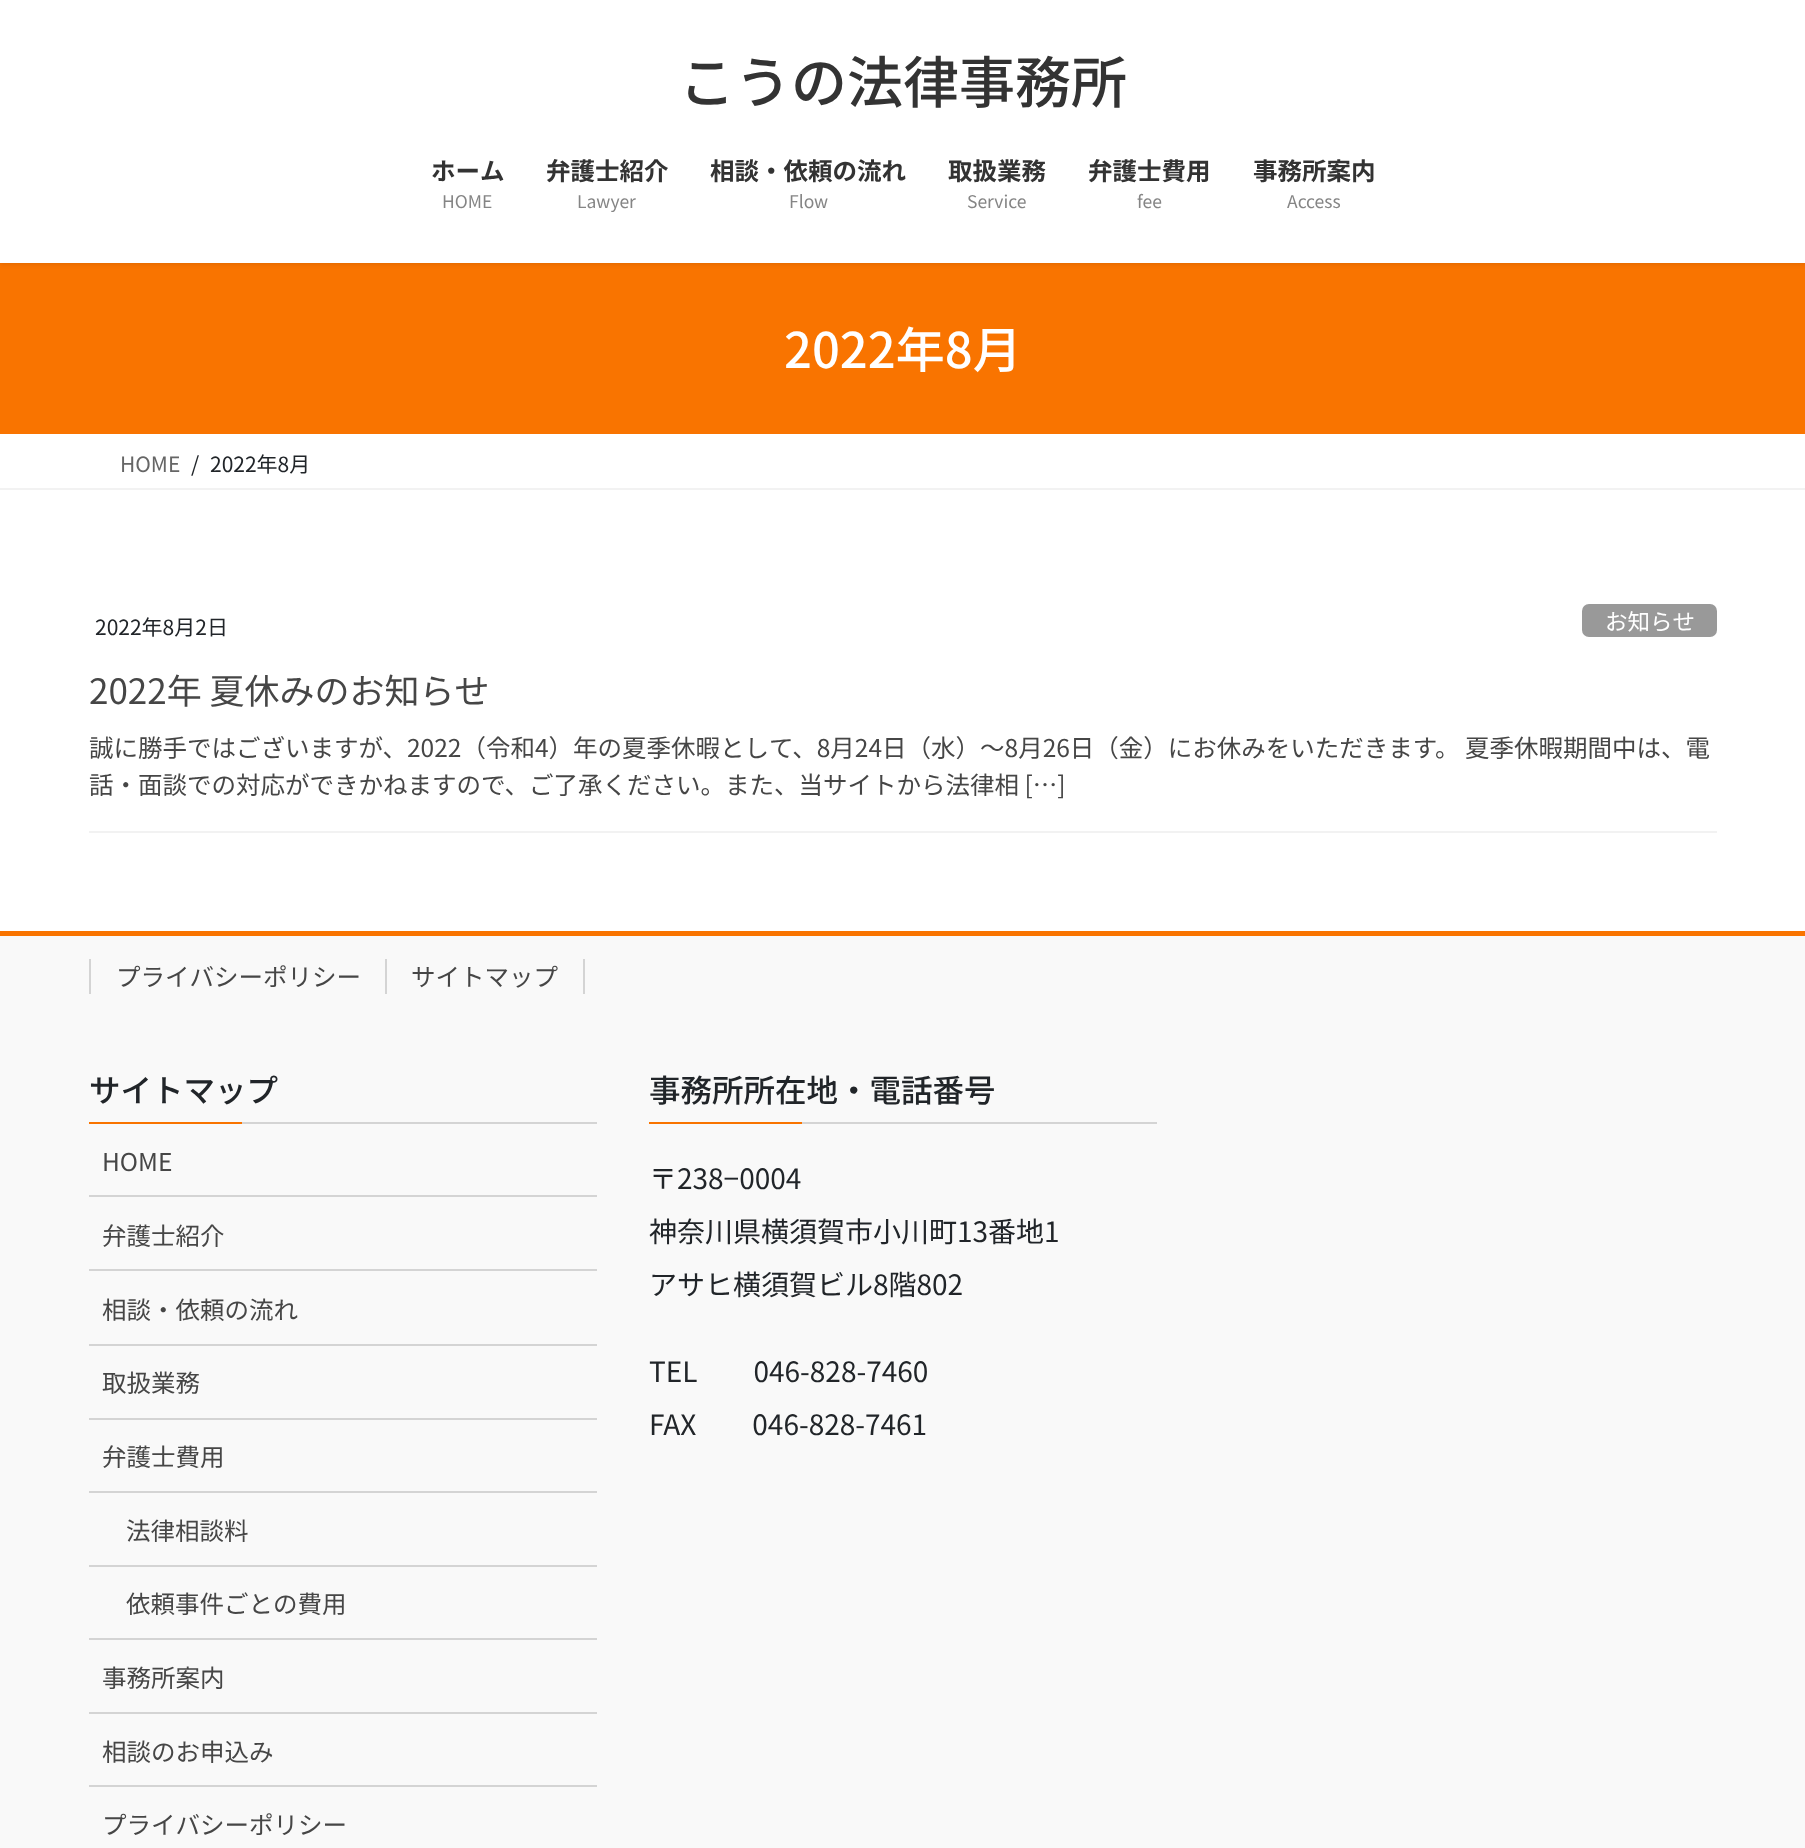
async function draw(canvas) {
  canvas.width = 1805
  canvas.height = 1848
  const ctx = canvas.getContext('2d')
  ctx.miterLimit = 4
  ctx.fontKerning = 'normal'

  ctx.fillStyle = '#fff'
  ctx.fillRect(0, 0, 1805, 1848)
  ctx.fillStyle = '#f97400'
  ctx.fillRect(0, 263, 1805, 171)
  ctx.fillStyle = '#0000001a'
  ctx.filter = 'blur(2.5px)'
  ctx.beginPath()
  ctx.rect(0, 2, 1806, 262)
  ctx.fill()
  ctx.filter = 'none'
  ctx.fillStyle = '#fff'
  ctx.fillRect(0, 0, 1805, 263)
  ctx.font = '500 56px Noto Sans JP'
  ctx.fillStyle = '#333'
  ctx.fillText('こうの法律事務所', 679, 103)
  ctx.font = 'bold 24.5px Noto Sans JP'
  ctx.fillText('ホーム', 431, 180)
  ctx.font = '17.5px Noto Sans JP'
  ctx.fillStyle = '#858585'
  ctx.fillText('HOME', 442, 208)
  ctx.font = 'bold 24.5px Noto Sans JP'
  ctx.fillStyle = '#333'
  ctx.fillText('弁護士紹介', 546, 180)
  ctx.font = '17.5px Noto Sans JP'
  ctx.fillStyle = '#858585'
  ctx.fillText('Lawyer', 577, 208)
  ctx.font = 'bold 24.5px Noto Sans JP'
  ctx.fillStyle = '#333'
  ctx.fillText('相談・依頼の流れ', 710, 180)
  ctx.font = '17.5px Noto Sans JP'
  ctx.fillStyle = '#858585'
  ctx.fillText('Flow', 789, 208)
  ctx.font = 'bold 24.5px Noto Sans JP'
  ctx.fillStyle = '#333'
  ctx.fillText('取扱業務', 948, 180)
  ctx.font = '17.5px Noto Sans JP'
  ctx.fillStyle = '#858585'
  ctx.fillText('Service', 967, 208)
  ctx.font = 'bold 24.5px Noto Sans JP'
  ctx.fillStyle = '#333'
  ctx.fillText('弁護士費用', 1088, 180)
  ctx.font = '17.5px Noto Sans JP'
  ctx.fillStyle = '#858585'
  ctx.fillText('fee', 1137, 208)
  ctx.font = 'bold 24.5px Noto Sans JP'
  ctx.fillStyle = '#333'
  ctx.fillText('事務所案内', 1253, 180)
  ctx.font = '17.5px Noto Sans JP'
  ctx.fillStyle = '#858585'
  ctx.fillText('Access', 1287, 208)
  ctx.font = '500 49px Noto Sans JP'
  ctx.fillStyle = '#fff'
  ctx.fillText('2022年8月', 784, 368)
  ctx.fillStyle = '#f2f2f2'
  ctx.fillRect(0, 488, 1805, 2)
  ctx.font = '21px Noto Sans JP'
  ctx.fillStyle = '#666'
  ctx.fillText('HOME', 120, 472)
  ctx.fillStyle = '#212529'
  ctx.fillText('/', 191, 472)
  ctx.fillText('2022年8月', 210, 472)
  ctx.fillStyle = '#f2f2f2'
  ctx.fillRect(89, 831, 1628, 2)
  ctx.fillStyle = '#212529'
  ctx.fillText('2022年8月2日', 95, 635)
  ctx.fillStyle = '#999'
  ctx.beginPath()
  ctx.roundRect(1582, 604, 135, 33, 7)
  ctx.fill()
  ctx.font = '22.5px Noto Sans JP'
  ctx.fillStyle = '#fff'
  ctx.fillText('お知らせ', 1605, 630)
  ctx.font = '35px Noto Sans JP'
  ctx.fillStyle = '#464646'
  ctx.fillText('2022年 夏休みのお知らせ', 89, 704)
  ctx.font = '24.5px Noto Sans JP'
  ctx.fillText('誠に勝手ではございますが、2022（令和4）年の夏季休暇として、8月24日（水）〜8月26日（金）にお休みをいただきます。 夏季休暇期間中は、電', 89, 757)
  ctx.fillText('話・面談での対応ができかねますので、ご了承ください。また、当サイトから法律相 […]', 89, 794)
  ctx.fillStyle = '#f9f9f9'
  ctx.fillRect(0, 936, 1805, 912)
  ctx.fillStyle = '#f97400'
  ctx.fillRect(0, 931, 1805, 5)
  ctx.fillStyle = '#464646'
  ctx.fillText('プライバシーポリシー', 116, 986)
  ctx.fillStyle = '#d4d4d4'
  ctx.fillRect(89, 959, 2, 35)
  ctx.fillStyle = '#464646'
  ctx.fillText('サイトマップ', 411, 986)
  ctx.fillStyle = '#d4d4d4'
  ctx.fillRect(583, 959, 2, 35)
  ctx.fillRect(385, 959, 2, 35)
  ctx.fillRect(242, 1122, 355, 2)
  ctx.font = '500 31.5px Noto Sans JP'
  ctx.fillStyle = '#212529'
  ctx.fillText('サイトマップ', 89, 1102)
  ctx.fillStyle = '#f97400'
  ctx.fillRect(89, 1122, 153, 2)
  ctx.fillStyle = '#d4d4d4'
  ctx.fillRect(89, 1195, 508, 2)
  ctx.font = '24.5px Noto Sans JP'
  ctx.fillStyle = '#464646'
  ctx.fillText('HOME', 102, 1171)
  ctx.fillStyle = '#d4d4d4'
  ctx.fillRect(89, 1269, 508, 2)
  ctx.fillStyle = '#464646'
  ctx.fillText('弁護士紹介', 102, 1245)
  ctx.fillStyle = '#d4d4d4'
  ctx.fillRect(89, 1344, 508, 2)
  ctx.fillStyle = '#464646'
  ctx.fillText('相談・依頼の流れ', 102, 1319)
  ctx.fillStyle = '#d4d4d4'
  ctx.fillRect(89, 1418, 508, 2)
  ctx.fillStyle = '#464646'
  ctx.fillText('取扱業務', 102, 1392)
  ctx.fillStyle = '#d4d4d4'
  ctx.fillRect(89, 1491, 508, 2)
  ctx.fillStyle = '#464646'
  ctx.fillText('弁護士費用', 102, 1466)
  ctx.fillStyle = '#d4d4d4'
  ctx.fillRect(89, 1565, 508, 2)
  ctx.fillStyle = '#464646'
  ctx.fillText('法律相談料', 126, 1540)
  ctx.fillStyle = '#d4d4d4'
  ctx.fillRect(89, 1638, 508, 2)
  ctx.fillStyle = '#464646'
  ctx.fillText('依頼事件ごとの費用', 126, 1613)
  ctx.fillStyle = '#d4d4d4'
  ctx.fillRect(89, 1712, 508, 2)
  ctx.fillStyle = '#464646'
  ctx.fillText('事務所案内', 102, 1687)
  ctx.fillStyle = '#d4d4d4'
  ctx.fillRect(89, 1785, 508, 2)
  ctx.fillStyle = '#464646'
  ctx.fillText('相談のお申込み', 102, 1761)
  ctx.fillText('プライバシーポリシー', 102, 1834)
  ctx.fillStyle = '#d4d4d4'
  ctx.fillRect(802, 1122, 355, 2)
  ctx.font = '500 31.5px Noto Sans JP'
  ctx.fillStyle = '#212529'
  ctx.fillText('事務所所在地・電話番号', 649, 1102)
  ctx.fillStyle = '#f97400'
  ctx.fillRect(649, 1122, 153, 2)
  ctx.font = '28px Noto Sans JP'
  ctx.fillStyle = '#212529'
  ctx.fillText('〒238−0004', 649, 1189)
  ctx.fillText('神奈川県横須賀市小川町13番地1', 649, 1242)
  ctx.fillText('アサヒ横須賀ビル8階802', 649, 1295)
  ctx.fillText('TEL　　046-828-7460', 649, 1382)
  ctx.fillText('FAX　　046-828-7461', 649, 1435)
}

draw(document.querySelector('canvas'))
